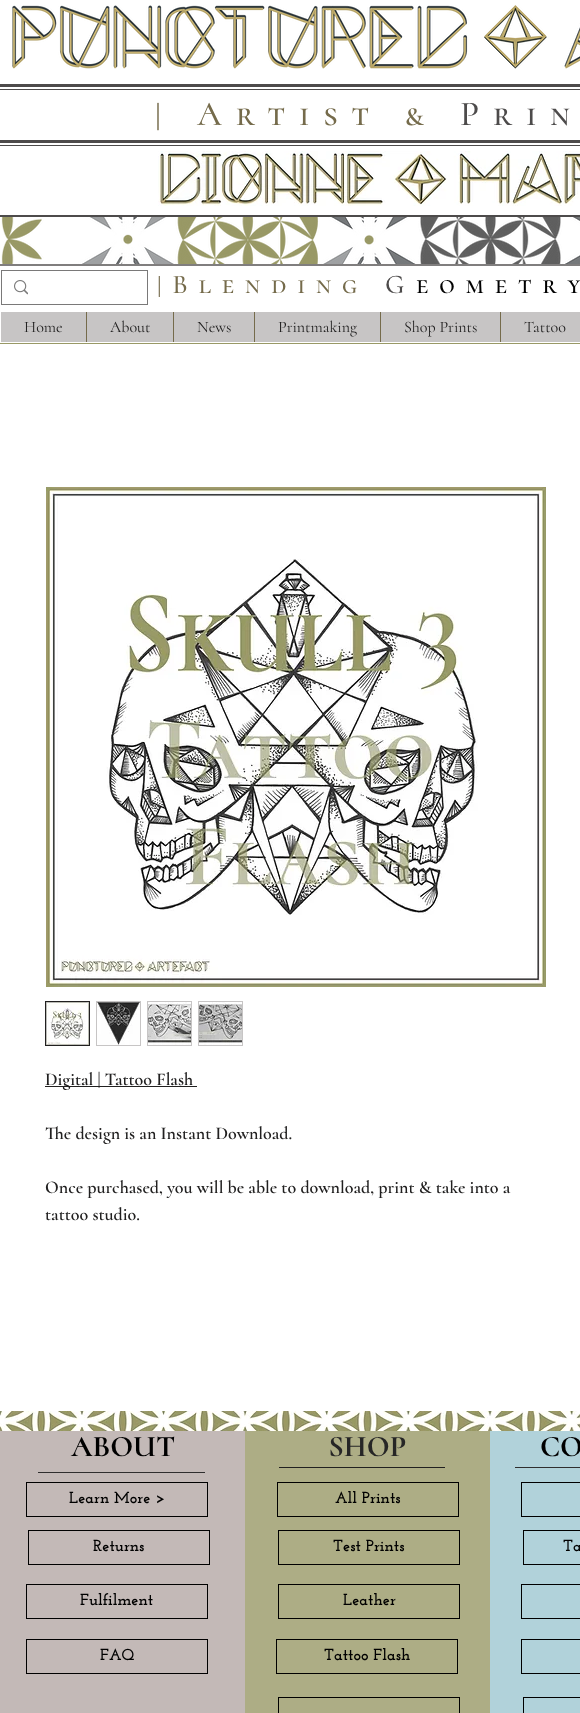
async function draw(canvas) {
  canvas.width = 580
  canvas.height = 1713
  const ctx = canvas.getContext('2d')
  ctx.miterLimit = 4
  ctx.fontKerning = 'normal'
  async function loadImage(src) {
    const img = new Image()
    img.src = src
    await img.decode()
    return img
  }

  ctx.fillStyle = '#fff'
  ctx.fillRect(0, 0, 580, 1713)
  ctx.drawImage(await loadImage('image0.png'), 12, 5, 568, 64)
  ctx.fillStyle = '#4d4b4b'
  ctx.fillRect(0, 84, 580, 3)
  ctx.fillRect(0, 89, 580, 1)
  ctx.letterSpacing = '14px'
  ctx.font = '500 35px Cormorant SC'
  ctx.fillStyle = '#756b4b'
  ctx.fillText('| Artist &', 155, 125)
  ctx.fillStyle = '#4d4b4b'
  ctx.fillText('Prin', 460, 125)
  ctx.fillRect(0, 140, 580, 3)
  ctx.fillRect(0, 145, 580, 1)
  ctx.drawImage(await loadImage('image1.png'), 158, 151, 422, 55)
  ctx.fillRect(0, 215, 580, 2)
  ctx.drawImage(await loadImage('image2.png'), 1, 217, 579, 47)
  ctx.fillStyle = '#807e7e'
  ctx.fillRect(0, 264, 580, 2)
  ctx.strokeStyle = '#7a7979'
  ctx.strokeRect(1.5, 270.5, 146, 34)
  ctx.drawImage(await loadImage('image3.png'), 14, 280, 14, 15)
  ctx.letterSpacing = '10.75px'
  ctx.font = '500 27px Cormorant SC'
  ctx.fillStyle = '#756b4b'
  ctx.fillText('|Blending', 157, 293)
  ctx.fillStyle = '#4d4b4b'
  ctx.fillText('G', 385, 293)
  ctx.fillStyle = '#000'
  ctx.fillText('eometry', 416, 293)
  ctx.fillStyle = '#c7c5c5'
  ctx.fillRect(1, 312, 579, 30)
  ctx.letterSpacing = '0px'
  ctx.font = '16px Cormorant'
  ctx.fillStyle = '#212020'
  ctx.fillText('Home', 24, 332)
  ctx.fillStyle = '#756b4b'
  ctx.fillRect(86, 312, 1, 30)
  ctx.fillStyle = '#212020'
  ctx.fillText('About', 110, 332)
  ctx.fillStyle = '#756b4b'
  ctx.fillRect(173, 312, 1, 30)
  ctx.fillStyle = '#212020'
  ctx.fillText('News', 197, 332)
  ctx.fillStyle = '#756b4b'
  ctx.fillRect(254, 312, 1, 30)
  ctx.fillStyle = '#212020'
  ctx.fillText('Printmaking', 278, 332)
  ctx.fillStyle = '#756b4b'
  ctx.fillRect(380, 312, 1, 30)
  ctx.fillStyle = '#212020'
  ctx.fillText('Shop Prints', 404, 332)
  ctx.fillStyle = '#756b4b'
  ctx.fillRect(500, 312, 1, 30)
  ctx.fillStyle = '#212020'
  ctx.fillText('Tattoo', 524, 332)
  ctx.fillStyle = '#996'
  ctx.fillRect(0, 343, 580, 1)
  ctx.drawImage(await loadImage('image4.png'), 46, 487, 500, 500)
  ctx.strokeStyle = '#212020'
  ctx.strokeRect(45.5, 1001.5, 44, 44)
  ctx.drawImage(await loadImage('image5.png'), 46, 1002, 43, 43)
  ctx.fillStyle = '#c7c5c5'
  ctx.fillRect(96, 1001, 45, 45)
  ctx.drawImage(await loadImage('image6.png'), 97, 1002, 43, 43)
  ctx.fillRect(147, 1001, 45, 45)
  ctx.drawImage(await loadImage('image7.png'), 148, 1002, 43, 43)
  ctx.fillRect(198, 1001, 45, 45)
  ctx.drawImage(await loadImage('image8.png'), 199, 1002, 43, 43)
  ctx.fillStyle = '#212020'
  ctx.fillRect(45, 1086, 152, 1)
  ctx.font = '600 18px Cormorant'
  ctx.fillText('Digital | Tattoo Flash', 45, 1085)
  ctx.fillText('The design is an Instant Download.', 45, 1139)
  ctx.fillText('Once purchased, you will be able to download, print & take into a', 45, 1193)
  ctx.fillText('tattoo studio.', 45, 1220)
  ctx.drawImage(await loadImage('image9.png'), 0, 1411, 580, 20)
  ctx.fillStyle = '#c3b9b7'
  ctx.fillRect(0, 1431, 245, 282)
  ctx.font = 'bold 30px Cormorant SC'
  ctx.fillStyle = '#000'
  ctx.fillText('ABOUT', 71, 1456)
  ctx.fillStyle = '#2f2e2e'
  ctx.fillRect(38, 1472, 167, 1)
  ctx.strokeStyle = '#000'
  ctx.strokeRect(26.5, 1482.5, 181, 34)
  ctx.font = 'bold 16px Josefin Slab'
  ctx.fillStyle = '#000'
  ctx.fillText('Learn More >', 69, 1503)
  ctx.strokeRect(28.5, 1530.5, 181, 34)
  ctx.fillText('Returns', 93, 1551)
  ctx.strokeRect(26.5, 1584.5, 181, 34)
  ctx.fillText('Fulfilment', 80, 1605)
  ctx.strokeRect(26.5, 1639.5, 181, 34)
  ctx.fillText('FAQ', 100, 1660)
  ctx.fillStyle = '#adad85'
  ctx.fillRect(245, 1431, 245, 282)
  ctx.font = 'bold 30px Cormorant SC'
  ctx.fillStyle = '#262626'
  ctx.fillText('SHOP', 328, 1456)
  ctx.fillStyle = '#212020'
  ctx.fillRect(279, 1467, 166, 1)
  ctx.strokeRect(277.5, 1482.5, 181, 34)
  ctx.font = 'bold 16px Josefin Slab'
  ctx.fillStyle = '#000'
  ctx.fillText('All Prints', 335, 1503)
  ctx.strokeRect(278.5, 1584.5, 181, 34)
  ctx.fillText('Leather', 343, 1605)
  ctx.strokeRect(276.5, 1639.5, 181, 34)
  ctx.fillText('Tattoo Flash', 324, 1660)
  ctx.strokeRect(278.5, 1697.5, 181, 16)
  ctx.fillStyle = '#b1d2da'
  ctx.fillRect(490, 1431, 90, 282)
  ctx.font = 'bold 30px Cormorant SC'
  ctx.fillStyle = '#000'
  ctx.fillText('CO', 540, 1456)
  ctx.fillStyle = '#2f2e2e'
  ctx.fillRect(515, 1467, 65, 1)
  ctx.strokeRect(521.5, 1482.5, 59, 34)
  ctx.strokeRect(523.5, 1530.5, 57, 34)
  ctx.font = 'bold 16px Josefin Slab'
  ctx.fillStyle = '#000'
  ctx.fillText('Ta', 563, 1551)
  ctx.strokeRect(521.5, 1584.5, 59, 34)
  ctx.strokeRect(521.5, 1639.5, 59, 34)
  ctx.strokeRect(523.5, 1697.5, 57, 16)
  ctx.strokeRect(278.5, 1530.5, 181, 34)
  ctx.fillText('Test Prints', 333, 1551)
}

draw(document.querySelector('canvas'))
